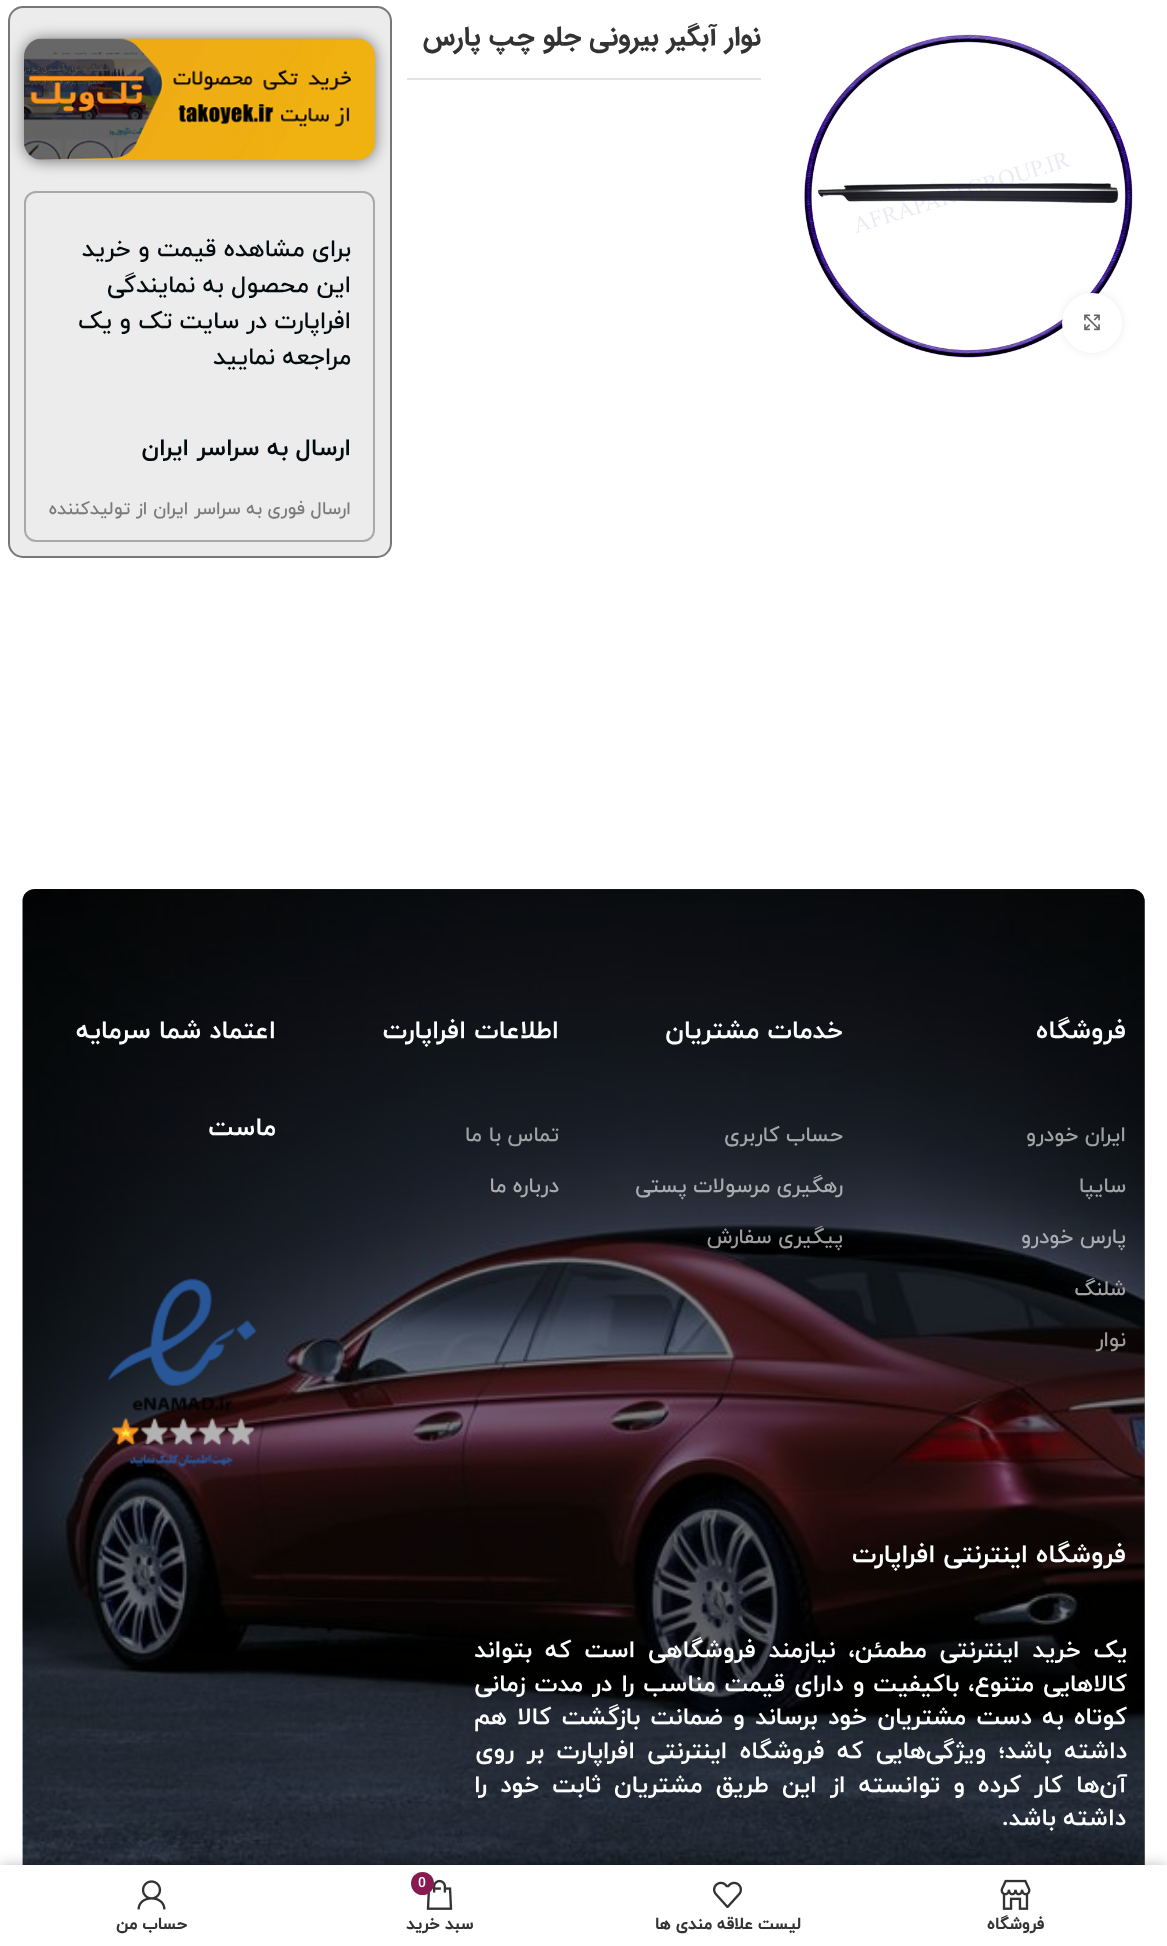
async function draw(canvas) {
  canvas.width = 1167
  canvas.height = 1946
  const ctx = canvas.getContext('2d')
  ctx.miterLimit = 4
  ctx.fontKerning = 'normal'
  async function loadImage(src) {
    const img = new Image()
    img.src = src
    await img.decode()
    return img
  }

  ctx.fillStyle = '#fff'
  ctx.fillRect(0, 0, 1167, 1946)
  ctx.drawImage(await loadImage('image0.png'), 804, 34, 329, 324)
  ctx.fillStyle = '#00000014'
  ctx.filter = 'blur(4px)'
  ctx.beginPath()
  ctx.roundRect(1062, 293, 60, 60, 30)
  ctx.fill()
  ctx.filter = 'none'
  ctx.fillStyle = '#fff'
  ctx.beginPath()
  ctx.arc(1092, 323, 30, 0, 2 * Math.PI)
  ctx.fill()
  ctx.drawImage(await loadImage('image1.png'), 1084, 314, 16, 17)
  ctx.direction = 'rtl'
  ctx.font = 'bold 27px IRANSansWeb'
  ctx.fillStyle = '#333'
  ctx.fillText('نوار آبگیر بیرونی جلو چپ پارس', 761, 45)
  ctx.fillStyle = '#e3e3e3'
  ctx.fillRect(407, 78, 354, 2)
  ctx.fillStyle = '#ececec'
  ctx.beginPath()
  ctx.roundRect(9, 7, 382, 550, 14)
  ctx.fill()
  ctx.strokeStyle = '#777'
  ctx.lineWidth = 2
  ctx.stroke()
  ctx.fillStyle = '#00000080'
  ctx.filter = 'blur(7.5px)'
  ctx.beginPath()
  ctx.roundRect(24, 39, 351, 122, 18)
  ctx.fill()
  ctx.filter = 'none'
  ctx.drawImage(await loadImage('image2.png'), 24, 38, 351, 122)
  ctx.beginPath()
  ctx.roundRect(25, 192, 349, 349, 11)
  ctx.strokeStyle = '#a9a9a9'
  ctx.stroke()
  ctx.font = '500 24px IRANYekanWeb'
  ctx.fillStyle = '#040b0e'
  ctx.fillText('برای مشاهده قیمت و خرید', 351, 256)
  ctx.fillText('این محصول به نمایندگی', 351, 292)
  ctx.fillText('افراپارت در', 351, 328)
  ctx.fillText('سایت تک و یک', 239, 328)
  ctx.fillText('مراجعه نمایید', 351, 364)
  ctx.font = 'bold 24px IRANYekanWeb'
  ctx.fillText('ارسال به سراسر ایران', 351, 455)
  ctx.font = '500 18px IRANYekanWeb'
  ctx.fillStyle = '#7a7a7a'
  ctx.fillText('ارسال فوری', 351, 514)
  ctx.fillText('به سراسر ایران از تولیدکننده', 262, 514)
  ctx.drawImage(await loadImage('image3.png'), 22, 889, 1123, 976)
  ctx.fillStyle = '#00000080'
  ctx.beginPath()
  ctx.roundRect(23, 890, 1122, 1051, 12)
  ctx.fill()
  ctx.font = 'bold 25.5px IRANYekanWeb'
  ctx.fillStyle = '#fdffff'
  ctx.fillText('فروشگاه', 1126, 1038)
  ctx.font = '500 21px IRANYekanWeb'
  ctx.fillStyle = '#a0a1a3'
  ctx.fillText('ایران خودرو', 1126, 1141)
  ctx.fillText('سایپا', 1126, 1192)
  ctx.fillStyle = '#a9abb0'
  ctx.fillText('پارس خودرو', 1126, 1243)
  ctx.fillStyle = '#a0a1a3'
  ctx.fillText('شلنگ', 1126, 1295)
  ctx.fillStyle = '#9e9c9c'
  ctx.fillText('نوار', 1126, 1346)
  ctx.font = 'bold 25.5px IRANYekanWeb'
  ctx.fillStyle = '#fdffff'
  ctx.fillText('خدمات مشتریان', 843, 1038)
  ctx.font = '500 21px IRANYekanWeb'
  ctx.fillStyle = '#a3a5a9'
  ctx.fillText('حساب کاربری', 843, 1141)
  ctx.fillStyle = '#a9abb0'
  ctx.fillText('رهگیری مرسولات پستی', 843, 1192)
  ctx.fillStyle = '#9e9c9c'
  ctx.fillText('پیگیری سفارش', 843, 1243)
  ctx.font = 'bold 25.5px IRANYekanWeb'
  ctx.fillStyle = '#fdffff'
  ctx.fillText('اطلاعات افراپارت', 559, 1038)
  ctx.font = '500 21px IRANYekanWeb'
  ctx.fillStyle = '#a0a1a3'
  ctx.fillText('تماس با ما', 559, 1141)
  ctx.fillStyle = '#a9abb0'
  ctx.fillText('درباره ما', 559, 1192)
  ctx.font = 'bold 25.5px IRANYekanWeb'
  ctx.fillStyle = '#fdffff'
  ctx.fillText('اعتماد شما سرمایه', 276, 1038)
  ctx.fillText('ماست', 276, 1135)
  ctx.drawImage(await loadImage('image4.png'), 107, 1278, 150, 189)
  ctx.fillText('فروشگاه اینترنتی افراپارت', 1126, 1562)
  ctx.wordSpacing = '5.5px'
  ctx.font = 'bold 24px IRANYekanWeb'
  ctx.fillText('یک خرید اینترنتی مطمئن، نیازمند فروشگاهی است که بتواند', 1127, 1657)
  ctx.wordSpacing = '1.5px'
  ctx.fillText('کالاهایی متنوع، باکیفیت و دارای قیمت مناسب را در مدت زمانی', 1127, 1691)
  ctx.wordSpacing = '2.9px'
  ctx.fillText('کوتاه به دست مشتریان خود برساند و ضمانت بازگشت کالا هم', 1127, 1724)
  ctx.wordSpacing = '5px'
  ctx.fillText('داشته باشد؛ ویژگی‌هایی که فروشگاه اینترنتی افراپارت بر روی', 1127, 1758)
  ctx.wordSpacing = '5.6px'
  ctx.fillText('آن‌ها کار کرده و توانسته از این طریق مشتریان ثابت خود را', 1127, 1792)
  ctx.wordSpacing = '0px'
  ctx.fillText('داشته باشد.', 1126, 1825)
  ctx.fillStyle = '#0000001f'
  ctx.filter = 'blur(7px)'
  ctx.beginPath()
  ctx.rect(0, 1865, 1167, 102)
  ctx.fill()
  ctx.filter = 'none'
  ctx.filter = 'blur(7px)'
  ctx.beginPath()
  ctx.rect(0, 1865, 1167, 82)
  ctx.fill()
  ctx.filter = 'none'
  ctx.fillStyle = '#fff'
  ctx.fillRect(0, 1865, 1167, 81)
  ctx.drawImage(await loadImage('image5.png'), 1000, 1879, 31, 31)
  ctx.font = 'bold 16.5px "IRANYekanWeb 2"'
  ctx.fillStyle = '#333'
  ctx.fillText('فروشگاه', 1044, 1929)
  ctx.drawImage(await loadImage('image6.png'), 713, 1881, 29, 27)
  ctx.fillText('لیست علاقه مندی ها', 801, 1929)
  ctx.drawImage(await loadImage('image7.png'), 426, 1879, 27, 31)
  ctx.fillStyle = '#871b51'
  ctx.beginPath()
  ctx.arc(422.5, 1883.5, 11.5, 0, 2 * Math.PI)
  ctx.fill()
  ctx.direction = 'ltr'
  ctx.font = '500 14px IRANYekanWeb'
  ctx.fillStyle = '#fdffff'
  ctx.fillText('0', 418, 1887)
  ctx.direction = 'rtl'
  ctx.font = 'bold 16.5px "IRANYekanWeb 2"'
  ctx.fillStyle = '#333'
  ctx.fillText('سبد خرید', 473, 1929)
  ctx.drawImage(await loadImage('image8.png'), 137, 1880, 29, 30)
  ctx.fillText('حساب من', 187, 1929)
}

draw(document.querySelector('canvas'))
